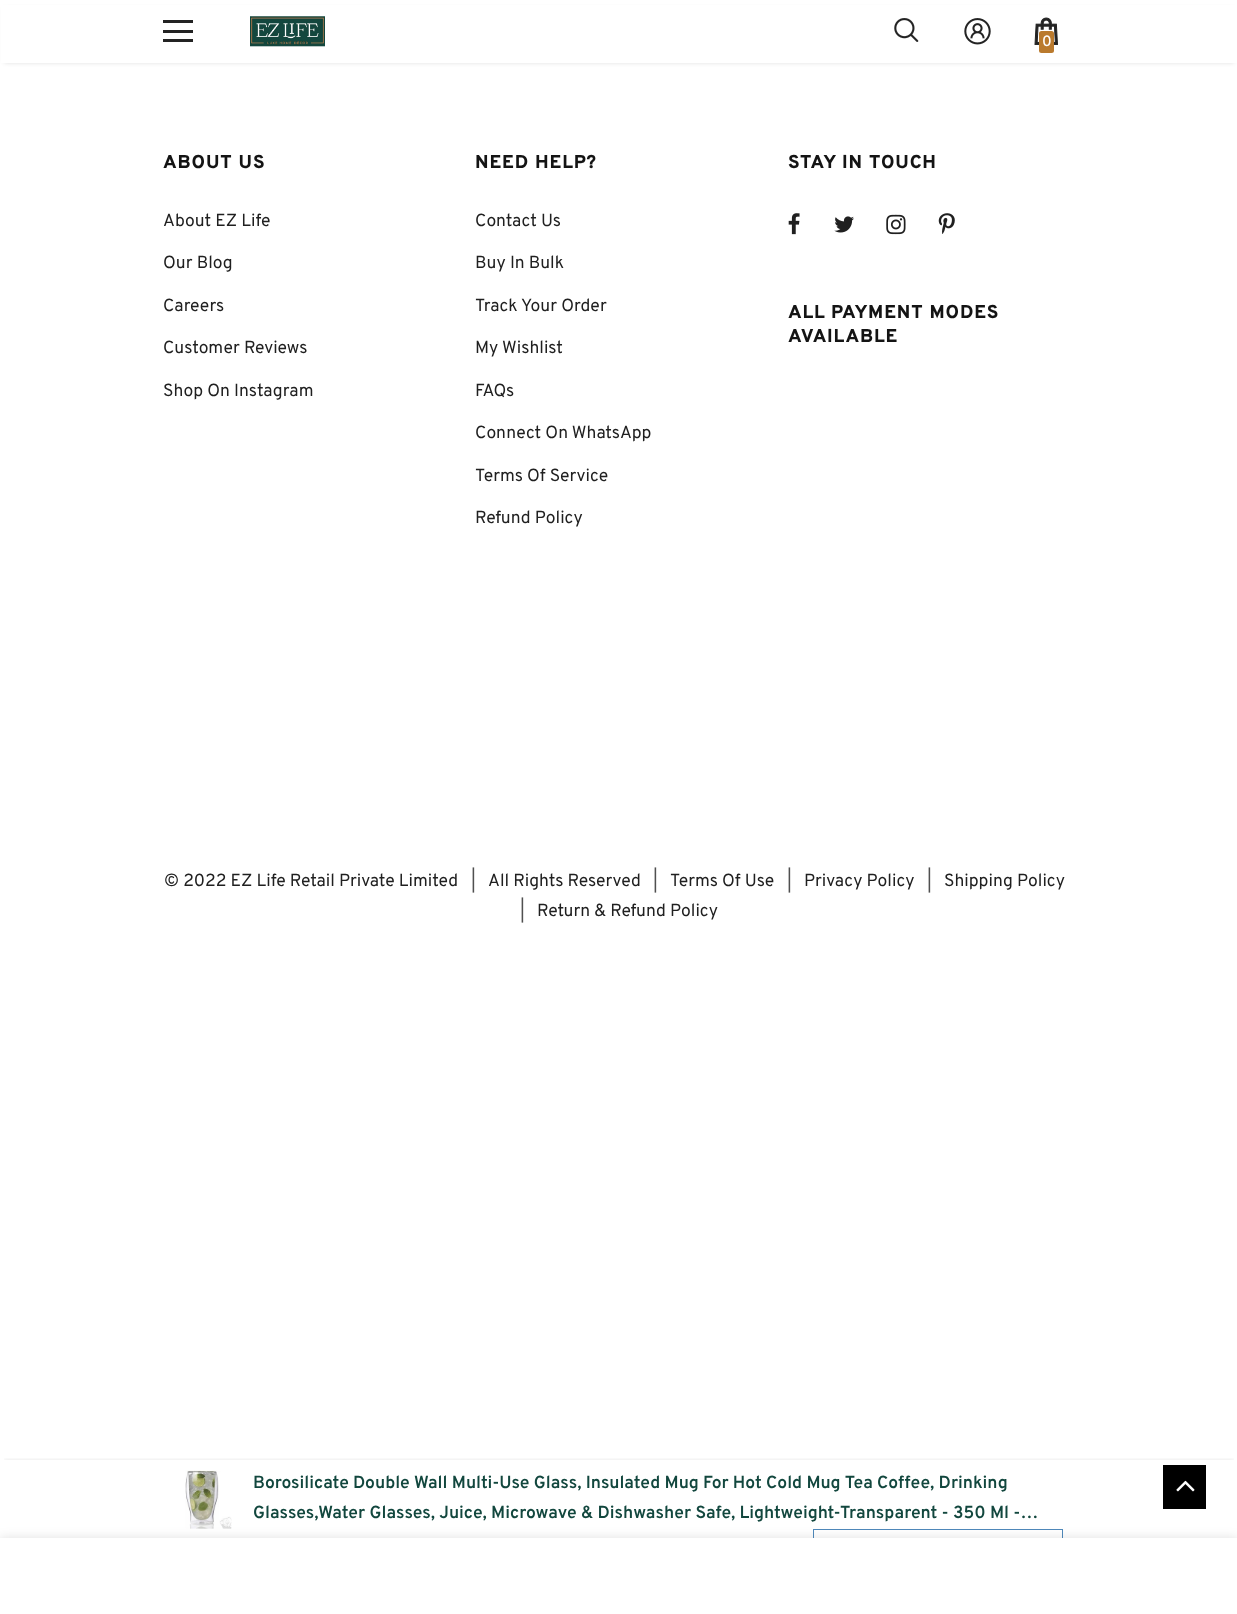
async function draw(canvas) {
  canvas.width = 1237
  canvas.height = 1614
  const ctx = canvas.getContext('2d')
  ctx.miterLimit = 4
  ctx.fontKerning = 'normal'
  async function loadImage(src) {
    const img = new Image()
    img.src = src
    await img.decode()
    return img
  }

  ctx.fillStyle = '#fff'
  ctx.fillRect(0, 0, 1237, 1614)
  ctx.fillStyle = '#0000001f'
  ctx.filter = 'blur(2px)'
  ctx.beginPath()
  ctx.rect(4, 8, 1230, 55)
  ctx.fill()
  ctx.filter = 'none'
  ctx.fillStyle = '#fff'
  ctx.fillRect(1, 5, 1236, 58)
  ctx.fillStyle = '#232323'
  ctx.fillRect(163, 20, 30, 3)
  ctx.fillRect(163, 30, 30, 3)
  ctx.fillRect(163, 39, 30, 3)
  ctx.drawImage(await loadImage('image0.png'), 250, 16, 75, 31)
  ctx.drawImage(await loadImage('image1.png'), 894, 18, 25, 24)
  ctx.drawImage(await loadImage('image2.png'), 964, 18, 27, 27)
  ctx.drawImage(await loadImage('image3.png'), 1034, 17, 24, 28)
  ctx.fillStyle = '#ba7a2d'
  ctx.beginPath()
  ctx.roundRect(1039, 31, 15, 22, 2.5)
  ctx.fill()
  ctx.font = '500 15px Overpass'
  ctx.fillStyle = '#fff'
  ctx.fillText('0', 1042, 46)
  ctx.letterSpacing = '0.9px'
  ctx.font = '800 18.75px Overpass'
  ctx.fillStyle = '#141414'
  ctx.fillText('ABOUT US', 163, 168)
  ctx.letterSpacing = '0px'
  ctx.font = '17.5px Overpass'
  ctx.fillStyle = '#202020'
  ctx.fillText('About EZ Life', 163, 226)
  ctx.fillText('Our Blog', 163, 268)
  ctx.fillText('Careers', 163, 311)
  ctx.fillText('Customer Reviews', 163, 353)
  ctx.fillText('Shop On Instagram', 163, 396)
  ctx.letterSpacing = '0.9px'
  ctx.font = '800 18.75px Overpass'
  ctx.fillStyle = '#141414'
  ctx.fillText('NEED HELP?', 475, 168)
  ctx.letterSpacing = '0px'
  ctx.font = '17.5px Overpass'
  ctx.fillStyle = '#202020'
  ctx.fillText('Contact Us', 475, 226)
  ctx.fillText('Buy In Bulk', 475, 268)
  ctx.fillText('Track Your Order', 475, 311)
  ctx.fillText('My Wishlist', 475, 353)
  ctx.fillText('FAQs', 475, 396)
  ctx.fillText('Connect On WhatsApp', 475, 438)
  ctx.fillText('Terms Of Service', 475, 481)
  ctx.fillText('Refund Policy', 475, 523)
  ctx.letterSpacing = '0.9px'
  ctx.font = '800 18.75px Overpass'
  ctx.fillStyle = '#141414'
  ctx.fillText('STAY IN TOUCH', 788, 168)
  ctx.drawImage(await loadImage('image4.png'), 788, 213, 12, 22)
  ctx.drawImage(await loadImage('image5.png'), 834, 216, 20, 17)
  ctx.drawImage(await loadImage('image6.png'), 886, 214, 20, 21)
  ctx.drawImage(await loadImage('image7.png'), 938, 213, 17, 21)
  ctx.fillText('ALL PAYMENT MODES', 788, 318)
  ctx.fillText('AVAILABLE', 788, 342)
  ctx.letterSpacing = '0px'
  ctx.font = '17.5px Overpass'
  ctx.fillStyle = '#202020'
  ctx.fillText('© 2022 EZ Life Retail Private Limited', 164, 886)
  ctx.fillStyle = '#505050'
  ctx.fillText('|', 471, 886)
  ctx.fillStyle = '#202020'
  ctx.fillText('All Rights Reserved', 488, 886)
  ctx.fillStyle = '#505050'
  ctx.fillText('|', 653, 886)
  ctx.fillStyle = '#202020'
  ctx.fillText('Terms Of Use', 670, 886)
  ctx.fillStyle = '#505050'
  ctx.fillText('|', 787, 886)
  ctx.fillStyle = '#202020'
  ctx.fillText('Privacy Policy', 804, 886)
  ctx.fillStyle = '#505050'
  ctx.fillText('|', 927, 886)
  ctx.fillStyle = '#202020'
  ctx.fillText('Shipping Policy', 944, 886)
  ctx.fillStyle = '#505050'
  ctx.fillText('|', 520, 916)
  ctx.fillStyle = '#202020'
  ctx.fillText('Return & Refund Policy', 537, 916)
  ctx.save()
  ctx.beginPath()
  ctx.rect(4, 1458, 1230, 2)
  ctx.clip()
  ctx.fillStyle = '#0000001a'
  ctx.filter = 'blur(2px)'
  ctx.beginPath()
  ctx.rect(4, 1460, 1230, 148)
  ctx.fill()
  ctx.filter = 'none'
  ctx.restore()
  ctx.drawImage(await loadImage('image8.png'), 185, 1470, 47, 59)
  ctx.font = '600 17.5px Overpass'
  ctx.fillStyle = '#12473e'
  ctx.fillText('Borosilicate Double Wall Multi-Use Glass, Insulated Mug For Hot Cold Mug Tea Coffee, Drinking', 253, 1488)
  ctx.fillText('Glasses,Water Glasses, Juice, Microwave & Dishwasher Safe, Lightweight-Transparent - 350 Ml -…', 253, 1518)
  ctx.strokeStyle = '#4f89bb'
  ctx.strokeRect(813.5, 1529.5, 249, 76)
  ctx.fillStyle = '#000'
  ctx.fillRect(1163, 1465, 43, 44)
  ctx.drawImage(await loadImage('image9.png'), 1176, 1480, 19, 12)
  ctx.fillStyle = '#0000001f'
  ctx.filter = 'blur(5.5px)'
  ctx.beginPath()
  ctx.rect(0, 1538, 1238, 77)
  ctx.fill()
  ctx.filter = 'none'
  ctx.fillStyle = '#fff'
  ctx.fillRect(0, 1538, 1237, 76)
}

draw(document.querySelector('canvas'))
